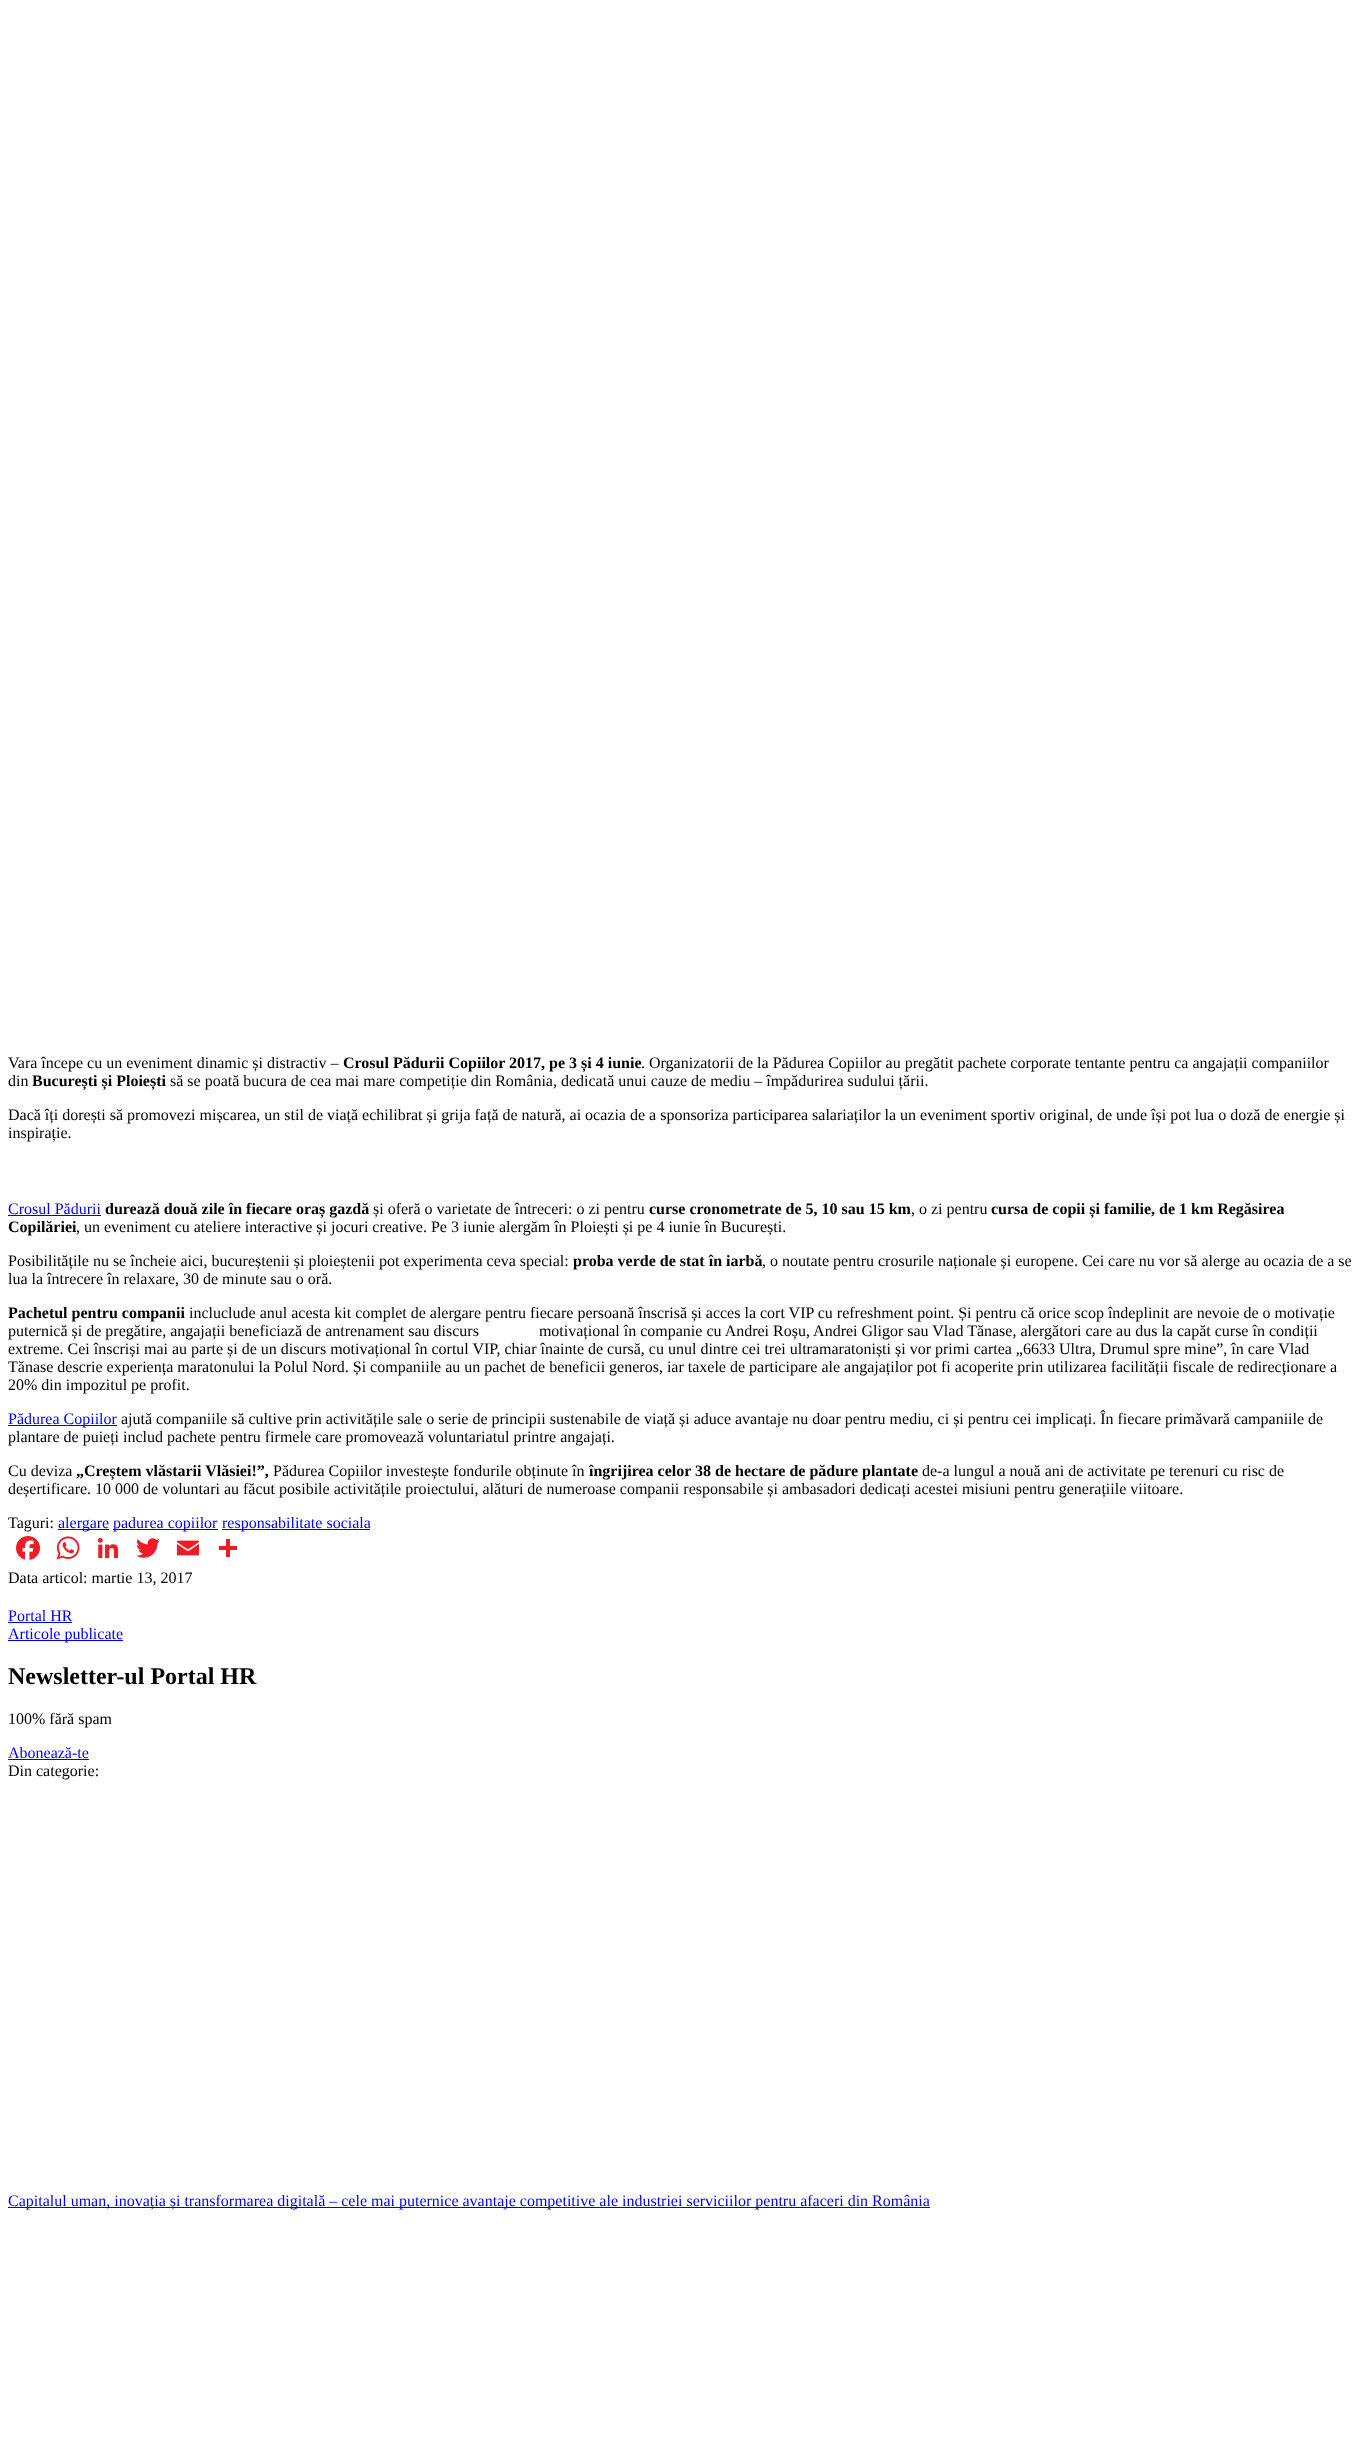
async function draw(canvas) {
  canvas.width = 1360
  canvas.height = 2464
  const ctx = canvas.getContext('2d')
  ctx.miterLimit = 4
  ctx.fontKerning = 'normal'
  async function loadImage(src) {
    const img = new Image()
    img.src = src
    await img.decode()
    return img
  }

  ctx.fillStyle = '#fff'
  ctx.fillRect(0, 0, 1360, 2464)
  ctx.font = '16px Liberation Serif'
  ctx.fillStyle = '#000'
  ctx.fillText('Vara începe cu un eveniment dinamic și distractiv –', 8, 1068)
  ctx.font = 'bold 16px Liberation Serif'
  ctx.fillText('Crosul Pădurii Copiilor 2017, pe 3 și 4 iunie', 343, 1068)
  ctx.font = '16px Liberation Serif'
  ctx.fillText('. Organizatorii de la Pădurea Copiilor au pregătit pachete corporate tentante pentru ca angajații companiilor', 641, 1068)
  ctx.fillText('din', 8, 1086)
  ctx.font = 'bold 16px Liberation Serif'
  ctx.fillText('București și Ploiești', 32, 1086)
  ctx.font = '16px Liberation Serif'
  ctx.fillText('să se poată bucura de cea mai mare competiție din România, dedicată unui cauze de mediu – împădurirea sudului țării.', 170, 1086)
  ctx.fillText('Dacă îți dorești să promovezi mișcarea, un stil de viață echilibrat și grija față de natură, ai ocazia de a sponsoriza participarea salariaților la un eveniment sportiv original, de unde își pot lua o doză de energie și', 8, 1120)
  ctx.fillText('inspirație.', 8, 1138)
  ctx.fillStyle = '#00e'
  ctx.fillText('Crosul Pădurii', 8, 1214)
  ctx.fillRect(8, 1215, 93, 1)
  ctx.font = 'bold 16px Liberation Serif'
  ctx.fillStyle = '#000'
  ctx.fillText('durează două zile în fiecare oraș gazdă', 105, 1214)
  ctx.font = '16px Liberation Serif'
  ctx.fillText('și oferă o varietate de întreceri: o zi pentru', 373, 1214)
  ctx.font = 'bold 16px Liberation Serif'
  ctx.fillText('curse cronometrate de 5, 10 sau 15 km', 649, 1214)
  ctx.font = '16px Liberation Serif'
  ctx.fillText(', o zi pentru', 911, 1214)
  ctx.font = 'bold 16px Liberation Serif'
  ctx.fillText('cursa de copii și familie, de 1 km Regăsirea', 991, 1214)
  ctx.fillText('Copilăriei', 8, 1232)
  ctx.font = '16px Liberation Serif'
  ctx.fillText(', un eveniment cu ateliere interactive și jocuri creative. Pe 3 iunie alergăm în Ploiești și pe 4 iunie în București.', 76, 1232)
  ctx.fillText('Posibilitățile nu se încheie aici, bucureștenii și ploieștenii pot experimenta ceva special:', 8, 1266)
  ctx.font = 'bold 16px Liberation Serif'
  ctx.fillText('proba verde de stat în iarbă', 573, 1266)
  ctx.font = '16px Liberation Serif'
  ctx.fillText(', o noutate pentru crosurile naționale și europene. Cei care nu vor să alerge au ocazia de a se', 762, 1266)
  ctx.fillText('lua la întrecere în relaxare, 30 de minute sau o oră.', 8, 1284)
  ctx.font = 'bold 16px Liberation Serif'
  ctx.fillText('Pachetul pentru companii', 8, 1318)
  ctx.font = '16px Liberation Serif'
  ctx.fillText('incluclude anul acesta kit complet de alergare pentru fiecare persoană înscrisă și acces la cort VIP cu refreshment point. Și pentru că orice scop îndeplinit are nevoie de o motivație', 189, 1318)
  ctx.fillText('puternică și de pregătire, angajații beneficiază de antrenament sau discurs               motivațional în companie cu Andrei Roșu, Andrei Gligor sau Vlad Tănase, alergători care au dus la capăt curse în condiții', 8, 1336)
  ctx.fillText('extreme. Cei înscriși mai au parte și de un discurs motivațional în cortul VIP, chiar înainte de cursă, cu unul dintre cei trei ultramaratoniști și vor primi cartea „6633 Ultra, Drumul spre mine”, în care Vlad', 8, 1354)
  ctx.fillText('Tănase descrie experiența maratonului la Polul Nord. Și companiile au un pachet de beneficii generos, iar taxele de participare ale angajaților pot fi acoperite prin utilizarea facilității fiscale de redirecționare a', 8, 1372)
  ctx.fillText('20% din impozitul pe profit.', 8, 1390)
  ctx.fillStyle = '#00e'
  ctx.fillRect(8, 1425, 109, 1)
  ctx.fillText('Pădurea Copiilor', 8, 1424)
  ctx.fillStyle = '#000'
  ctx.fillText('ajută companiile să cultive prin activitățile sale o serie de principii sustenabile de viață și aduce avantaje nu doar pentru mediu, ci și pentru cei implicați. În fiecare primăvară campaniile de', 121, 1424)
  ctx.fillText('plantare de puieți includ pachete pentru firmele care promovează voluntariatul printre angajați.', 8, 1442)
  ctx.fillText('Cu deviza', 8, 1476)
  ctx.font = 'bold 16px Liberation Serif'
  ctx.fillText('„Creștem vlăstarii Vlăsiei!”,', 76, 1476)
  ctx.font = '16px Liberation Serif'
  ctx.fillText('Pădurea Copiilor investește fondurile obținute în', 273, 1476)
  ctx.font = 'bold 16px Liberation Serif'
  ctx.fillText('îngrijirea celor 38 de hectare de pădure plantate', 589, 1476)
  ctx.font = '16px Liberation Serif'
  ctx.fillText('de-a lungul a nouă ani de activitate pe terenuri cu risc de', 922, 1476)
  ctx.fillText('deșertificare. 10 000 de voluntari au făcut posibile activitățile proiectului, alături de numeroase companii responsabile și ambasadori dedicați acestei misiuni pentru generațiile viitoare.', 8, 1494)
  ctx.fillText('Taguri:', 8, 1528)
  ctx.fillStyle = '#00e'
  ctx.fillRect(58, 1529, 51, 1)
  ctx.fillText('alergare', 58, 1528)
  ctx.fillRect(113, 1529, 105, 1)
  ctx.fillText('padurea copiilor', 113, 1528)
  ctx.fillRect(222, 1529, 148, 1)
  ctx.fillText('responsabilitate sociala', 222, 1528)
  ctx.drawImage(await loadImage('image0.png'), 16, 1536, 24, 24)
  ctx.drawImage(await loadImage('image1.png'), 56, 1536, 24, 24)
  ctx.drawImage(await loadImage('image2.png'), 97, 1537, 22, 22)
  ctx.drawImage(await loadImage('image3.png'), 136, 1538, 24, 20)
  ctx.drawImage(await loadImage('image4.png'), 177, 1540, 22, 16)
  ctx.fillStyle = '#ee1d25'
  ctx.fillRect(226, 1539, 4, 18)
  ctx.fillRect(219, 1546, 18, 4)
  ctx.fillStyle = '#000'
  ctx.fillText('Data articol: martie 13, 2017', 8, 1583)
  ctx.fillStyle = '#00e'
  ctx.fillText('Portal HR', 8, 1621)
  ctx.fillRect(8, 1622, 64, 1)
  ctx.fillRect(8, 1640, 115, 1)
  ctx.fillText('Articole publicate', 8, 1639)
  ctx.font = 'bold 24px Liberation Serif'
  ctx.fillStyle = '#000'
  ctx.fillText('Newsletter-ul Portal HR', 8, 1684)
  ctx.font = '16px Liberation Serif'
  ctx.fillText('100% fără spam', 8, 1724)
  ctx.fillStyle = '#00e'
  ctx.fillText('Abonează-te', 8, 1758)
  ctx.fillRect(8, 1759, 81, 1)
  ctx.fillStyle = '#000'
  ctx.fillText('Din categorie:', 8, 1776)
  ctx.fillStyle = '#00e'
  ctx.fillRect(8, 2207, 922, 1)
  ctx.fillText('Capitalul uman, inovația și transformarea digitală – cele mai puternice avantaje competitive ale industriei serviciilor pentru afaceri din România', 8, 2206)
}

draw(document.querySelector('canvas'))
